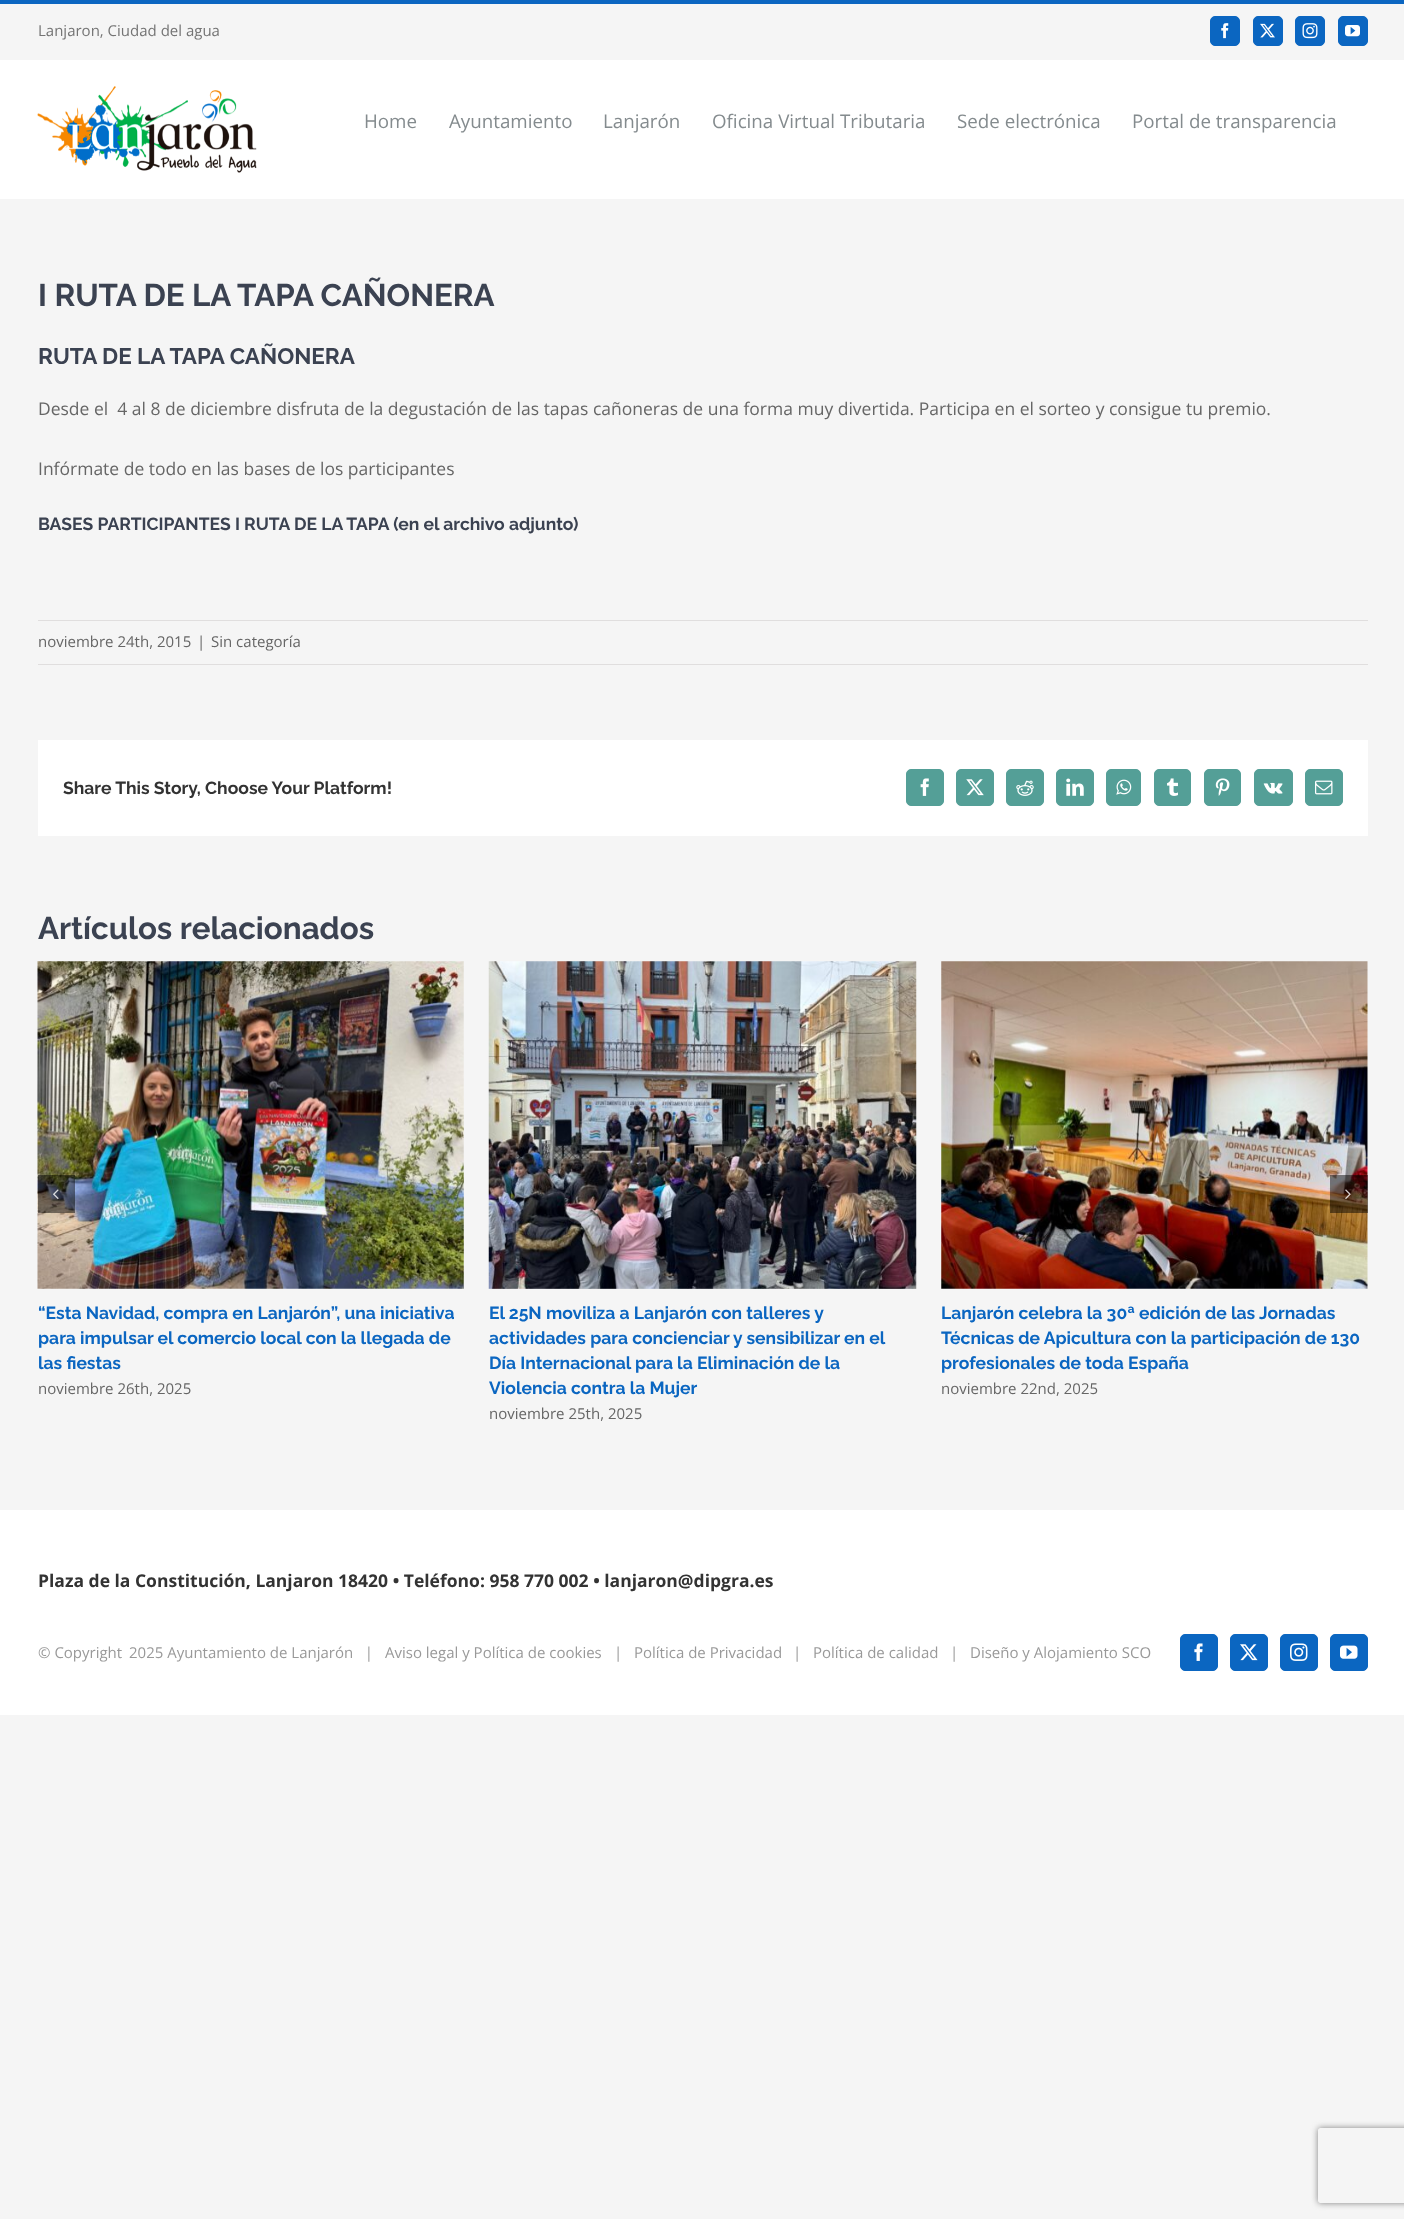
async function draw(canvas) {
  canvas.width = 1404
  canvas.height = 2219
  const ctx = canvas.getContext('2d')
  ctx.miterLimit = 4
  ctx.fontKerning = 'normal'
  async function loadImage(src) {
    const img = new Image()
    img.src = src
    await img.decode()
    return img
  }

  ctx.fillStyle = '#f5f5f5'
  ctx.fillRect(0, 0, 1404, 2219)
  ctx.fillStyle = '#0b66c1'
  ctx.fillRect(0, 0, 1404, 4)
  ctx.font = '15px Open Sans'
  ctx.fillStyle = '#747474'
  ctx.fillText('Lanjaron, Ciudad del agua', 38, 36)
  ctx.fillStyle = '#0b66c1'
  ctx.beginPath()
  ctx.roundRect(1210.5, 16.5, 29, 29, 4.5)
  ctx.fill()
  ctx.strokeStyle = '#0b66c1'
  ctx.stroke()
  ctx.drawImage(await loadImage('image0.png'), 1221, 23, 8, 16)
  ctx.beginPath()
  ctx.roundRect(1253.5, 16.5, 29, 29, 4.5)
  ctx.fill()
  ctx.stroke()
  ctx.drawImage(await loadImage('image1.png'), 1260, 23, 15, 15)
  ctx.beginPath()
  ctx.roundRect(1295.5, 16.5, 29, 29, 4.5)
  ctx.fill()
  ctx.stroke()
  ctx.drawImage(await loadImage('image2.png'), 1302, 23, 16, 16)
  ctx.beginPath()
  ctx.roundRect(1338.5, 16.5, 29, 29, 4.5)
  ctx.fill()
  ctx.stroke()
  ctx.drawImage(await loadImage('image3.png'), 1345, 25, 15, 12)
  ctx.fillStyle = '#fff'
  ctx.fillRect(0, 60, 1404, 139)
  ctx.drawImage(await loadImage('image4.png'), 37, 86, 220, 87)
  ctx.font = '18.75px Open Sans'
  ctx.fillStyle = '#848b8e'
  ctx.fillText('Home', 364, 128)
  ctx.fillText('Ayuntamiento', 449, 128)
  ctx.fillText('Lanjarón', 603, 128)
  ctx.fillText('Oficina Virtual Tributaria', 712, 128)
  ctx.fillText('Sede electrónica', 957, 128)
  ctx.fillText('Portal de transparencia', 1132, 128)
  ctx.font = '100 31.25px Raleway'
  ctx.fillStyle = '#3b4251'
  ctx.fillText('I RUTA DE LA TAPA CAÑONERA', 38, 306)
  ctx.font = '100 22.5px Raleway'
  ctx.fillText('RUTA DE LA TAPA CAÑONERA', 38, 364)
  ctx.font = '17.5px Open Sans'
  ctx.fillStyle = '#666'
  ctx.fillText('Desde el  4 al 8 de diciembre disfruta de la degustación de las tapas cañoneras de una forma muy divertida. Participa en el sorteo y consigue tu premio.', 38, 415)
  ctx.fillText('Infórmate de todo en las bases de los participantes', 38, 475)
  ctx.font = '100 17.5px Raleway'
  ctx.fillStyle = '#3b4251'
  ctx.fillText('BASES PARTICIPANTES I RUTA DE LA TAPA (en el archivo adjunto)', 38, 530)
  ctx.fillStyle = '#e0dede'
  ctx.fillRect(38, 620, 1330, 1)
  ctx.fillRect(38, 664, 1330, 1)
  ctx.font = '15px Open Sans'
  ctx.fillStyle = '#666'
  ctx.fillText('noviembre 24th, 2015', 38, 647)
  ctx.fillText('|', 197, 647)
  ctx.fillText('Sin categoría', 211, 647)
  ctx.fillStyle = '#fff'
  ctx.fillRect(38, 740, 1330, 96)
  ctx.font = '100 17.5px Raleway'
  ctx.fillStyle = '#333'
  ctx.fillText('Share This Story, Choose Your Platform!', 63, 794)
  ctx.fillStyle = '#549f97'
  ctx.beginPath()
  ctx.roundRect(906.5, 769.5, 37, 36, 4.5)
  ctx.fill()
  ctx.strokeStyle = '#549f97'
  ctx.stroke()
  ctx.drawImage(await loadImage('image5.png'), 920, 778, 9, 18)
  ctx.beginPath()
  ctx.roundRect(956.5, 769.5, 37, 36, 4.5)
  ctx.fill()
  ctx.stroke()
  ctx.drawImage(await loadImage('image6.png'), 966, 779, 18, 17)
  ctx.beginPath()
  ctx.roundRect(1006.5, 769.5, 37, 36, 4.5)
  ctx.fill()
  ctx.stroke()
  ctx.drawImage(await loadImage('image7.png'), 1016, 780, 18, 16)
  ctx.beginPath()
  ctx.roundRect(1056.5, 769.5, 37, 36, 4.5)
  ctx.fill()
  ctx.stroke()
  ctx.drawImage(await loadImage('image8.png'), 1066, 778, 18, 18)
  ctx.beginPath()
  ctx.roundRect(1106.5, 769.5, 34, 36, 4.5)
  ctx.fill()
  ctx.stroke()
  ctx.drawImage(await loadImage('image9.png'), 1116, 779, 16, 16)
  ctx.beginPath()
  ctx.roundRect(1154.5, 769.5, 36, 36, 4.5)
  ctx.fill()
  ctx.stroke()
  ctx.drawImage(await loadImage('image10.png'), 1167, 778, 11, 18)
  ctx.beginPath()
  ctx.roundRect(1204.5, 769.5, 36, 36, 4.5)
  ctx.fill()
  ctx.stroke()
  ctx.drawImage(await loadImage('image11.png'), 1215, 778, 15, 18)
  ctx.beginPath()
  ctx.roundRect(1254.5, 769.5, 38, 36, 4.5)
  ctx.fill()
  ctx.stroke()
  ctx.drawImage(await loadImage('image12.png'), 1263, 782, 20, 12)
  ctx.beginPath()
  ctx.roundRect(1305.5, 769.5, 37, 36, 4.5)
  ctx.fill()
  ctx.stroke()
  ctx.drawImage(await loadImage('image13.png'), 1315, 780, 18, 15)
  ctx.font = '100 31.25px Raleway'
  ctx.fillStyle = '#3b4251'
  ctx.fillText('Artículos relacionados', 38, 939)
  ctx.drawImage(await loadImage('image16.png'), 37, 961, 427, 328)
  ctx.fillStyle = '#0000007a'
  ctx.fillRect(38, 1175, 37, 38)
  ctx.drawImage(await loadImage('image14.png'), 53, 1189, 6, 10)
  ctx.drawImage(await loadImage('image18.png'), 941, 961, 427, 328)
  ctx.fillRect(1330, 1175, 38, 38)
  ctx.drawImage(await loadImage('image15.png'), 1345, 1189, 6, 10)
  ctx.font = '100 17.5px Raleway'
  ctx.fillStyle = '#0b66c1'
  ctx.fillText('“Esta Navidad, compra en Lanjarón”, una iniciativa', 38, 1319)
  ctx.fillText('para impulsar el comercio local con la llegada de', 38, 1344)
  ctx.fillText('las fiestas', 38, 1369)
  ctx.font = '15px Open Sans'
  ctx.fillStyle = '#666'
  ctx.fillText('noviembre 26th, 2025', 38, 1394)
  ctx.drawImage(await loadImage('image17.png'), 488, 961, 429, 328)
  ctx.font = '100 17.5px Raleway'
  ctx.fillStyle = '#0b66c1'
  ctx.fillText('El 25N moviliza a Lanjarón con talleres y', 489, 1319)
  ctx.fillText('actividades para concienciar y sensibilizar en el', 489, 1344)
  ctx.fillText('Día Internacional para la Eliminación de la', 489, 1369)
  ctx.fillText('Violencia contra la Mujer', 489, 1394)
  ctx.font = '15px Open Sans'
  ctx.fillStyle = '#666'
  ctx.fillText('noviembre 25th, 2025', 489, 1419)
  ctx.font = '100 17.5px Raleway'
  ctx.fillStyle = '#0b66c1'
  ctx.fillText('Lanjarón celebra la 30ª edición de las Jornadas', 941, 1319)
  ctx.fillText('Técnicas de Apicultura con la participación de 130', 941, 1344)
  ctx.fillText('profesionales de toda España', 941, 1369)
  ctx.font = '15px Open Sans'
  ctx.fillStyle = '#666'
  ctx.fillText('noviembre 22nd, 2025', 941, 1394)
  ctx.fillStyle = '#fff'
  ctx.fillRect(0, 1510, 1404, 205)
  ctx.font = 'bold 17.5px Open Sans'
  ctx.fillStyle = '#333'
  ctx.fillText('Plaza de la Constitución, Lanjaron 18420 • Teléfono: 958 770 002 • lanjaron@dipgra.es', 38, 1587)
  ctx.font = '15px Open Sans'
  ctx.fillStyle = '#999'
  ctx.fillText('© Copyright', 38, 1658)
  ctx.fillText('2025 Ayuntamiento de Lanjarón   |', 129, 1658)
  ctx.fillText('Aviso legal y Política de cookies', 385, 1658)
  ctx.fillText('|', 614, 1658)
  ctx.fillText('Política de Privacidad', 634, 1658)
  ctx.fillText('|', 793, 1658)
  ctx.fillText('Política de calidad', 813, 1658)
  ctx.fillText('|', 950, 1658)
  ctx.fillText('Diseño y Alojamiento SCO', 970, 1658)
  ctx.fillStyle = '#0b66c1'
  ctx.beginPath()
  ctx.roundRect(1180.5, 1634.5, 37, 36, 4.5)
  ctx.fill()
  ctx.strokeStyle = '#0b66c1'
  ctx.stroke()
  ctx.drawImage(await loadImage('image19.png'), 1194, 1643, 9, 18)
  ctx.beginPath()
  ctx.roundRect(1230.5, 1634.5, 37, 36, 4.5)
  ctx.fill()
  ctx.stroke()
  ctx.drawImage(await loadImage('image20.png'), 1240, 1644, 18, 17)
  ctx.beginPath()
  ctx.roundRect(1280.5, 1634.5, 37, 36, 4.5)
  ctx.fill()
  ctx.stroke()
  ctx.drawImage(await loadImage('image21.png'), 1290, 1643, 18, 18)
  ctx.beginPath()
  ctx.roundRect(1330.5, 1634.5, 37, 36, 4.5)
  ctx.fill()
  ctx.stroke()
  ctx.drawImage(await loadImage('image22.png'), 1340, 1645, 18, 14)
  ctx.save()
  ctx.beginPath()
  ctx.moveTo(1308, 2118)
  ctx.lineTo(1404, 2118)
  ctx.lineTo(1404, 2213)
  ctx.lineTo(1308, 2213)
  ctx.closePath()
  ctx.moveTo(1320.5, 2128)
  ctx.lineTo(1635.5, 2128)
  ctx.bezierCurveTo(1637, 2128, 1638, 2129, 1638, 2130.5)
  ctx.lineTo(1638, 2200.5)
  ctx.bezierCurveTo(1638, 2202, 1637, 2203, 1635.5, 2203)
  ctx.lineTo(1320.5, 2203)
  ctx.bezierCurveTo(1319, 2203, 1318, 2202, 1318, 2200.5)
  ctx.lineTo(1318, 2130.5)
  ctx.bezierCurveTo(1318, 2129, 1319, 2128, 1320.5, 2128)
  ctx.closePath()
  ctx.clip('evenodd')
  ctx.fillStyle = '#808080'
  ctx.filter = 'blur(3px)'
  ctx.beginPath()
  ctx.roundRect(1318, 2128, 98, 75, 2.5)
  ctx.fill()
  ctx.filter = 'none'
  ctx.restore()
}

draw(document.querySelector('canvas'))
